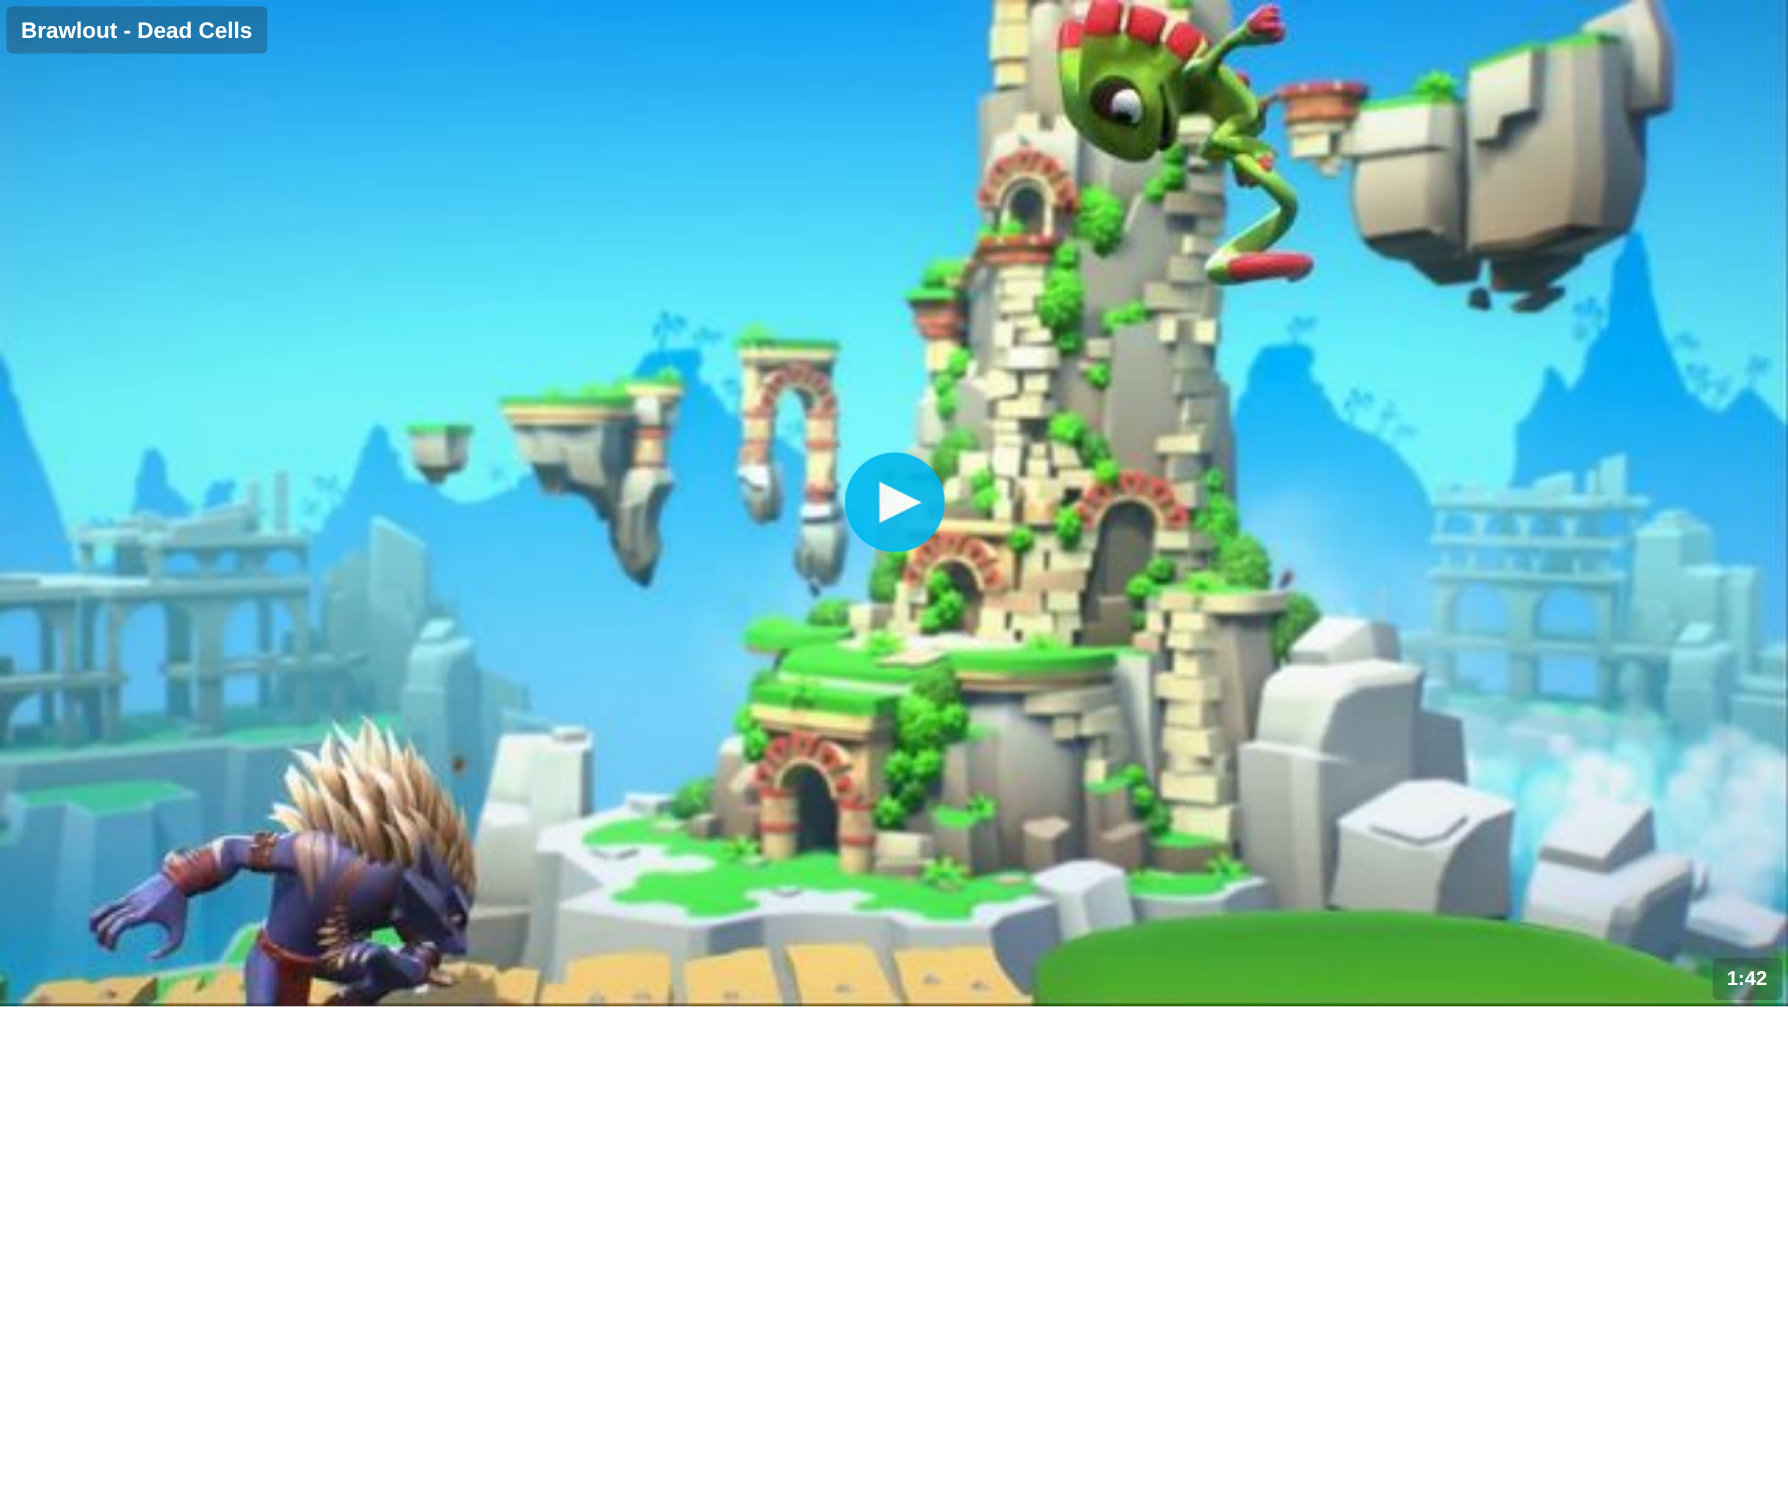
async function draw(canvas) {
  canvas.width = 1788
  canvas.height = 1500
  const ctx = canvas.getContext('2d')
  ctx.miterLimit = 4
  ctx.fontKerning = 'normal'
  async function loadImage(src) {
    const img = new Image()
    img.src = src
    await img.decode()
    return img
  }

  ctx.fillStyle = '#fff'
  ctx.fillRect(0, 0, 1788, 1500)
  ctx.drawImage(await loadImage('image0.png'), 0, 0, 1788, 1007)
  ctx.drawImage(await loadImage('image1.png'), 6, 6, 262, 48)
  ctx.font = 'bold 22.5px Liberation Sans'
  ctx.fillText('Brawlout - Dead Cells', 21, 38)
  ctx.drawImage(await loadImage('image2.png'), 845, 452, 100, 101)
  ctx.drawImage(await loadImage('image3.png'), 1712, 957, 71, 43)
  ctx.font = 'bold 20px Liberation Sans'
  ctx.fillText('1:42', 1727, 985)
  ctx.drawImage(await loadImage('image4.png'), 0, 1006, 1788, 1)
}

draw(document.querySelector('canvas'))
